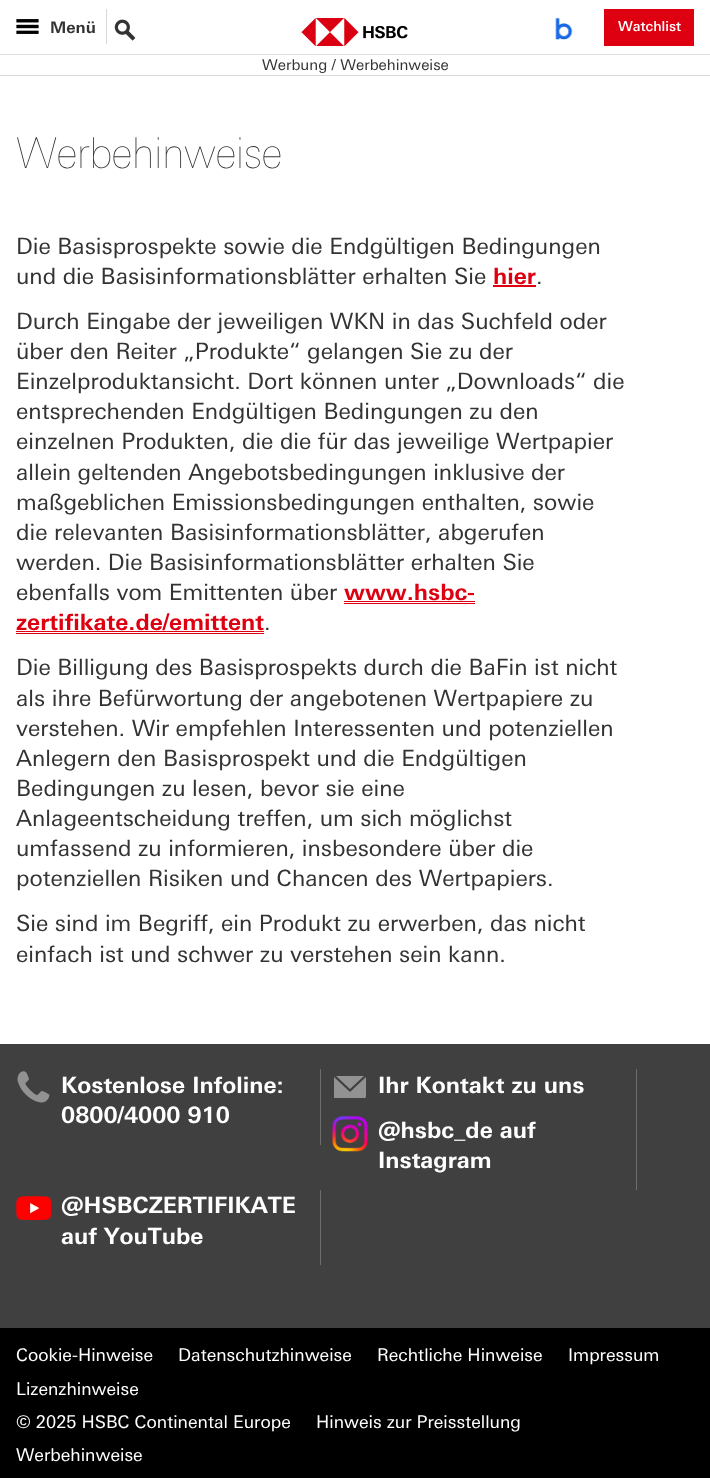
async function draw(canvas) {
  canvas.width = 710
  canvas.height = 1478
  const ctx = canvas.getContext('2d')
  ctx.miterLimit = 4
  ctx.fontKerning = 'normal'
  async function loadImage(src) {
    const img = new Image()
    img.src = src
    await img.decode()
    return img
  }

  ctx.fillStyle = '#fff'
  ctx.fillRect(0, 0, 710, 1478)
  ctx.fillStyle = '#d9d9d9'
  ctx.fillRect(0, 75, 710, 1)
  ctx.drawImage(await loadImage('image0.png'), 16, 19, 23, 15)
  ctx.font = 'bold 16px "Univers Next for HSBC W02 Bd"'
  ctx.fillStyle = '#333'
  ctx.fillText('Menü', 50, 33)
  ctx.fillStyle = '#d9d9d9'
  ctx.fillRect(106, 9, 1, 35)
  ctx.drawImage(await loadImage('image1.png'), 114, 19, 22, 22)
  ctx.drawImage(await loadImage('image2.png'), 301, 18, 107, 28)
  ctx.drawImage(await loadImage('image3.png'), 555, 17, 18, 23)
  ctx.fillStyle = '#de0011'
  ctx.fillRect(604, 9, 90, 37)
  ctx.font = '500 13.75px "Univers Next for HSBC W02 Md"'
  ctx.fillStyle = '#fff'
  ctx.fillText('Watchlist', 618, 31)
  ctx.fillStyle = '#e0e0e0'
  ctx.fillRect(0, 54, 710, 1)
  ctx.font = '15px "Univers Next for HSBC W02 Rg"'
  ctx.fillStyle = '#333'
  ctx.fillText('Werbung / Werbehinweise', 262, 70)
  ctx.letterSpacing = '-1px'
  ctx.font = '200 42.5px "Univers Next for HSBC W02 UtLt"'
  ctx.fillText('Werbehinweise', 16, 168)
  ctx.letterSpacing = '0px'
  ctx.font = '22.5px "Univers Next for HSBC W02 Rg"'
  ctx.fillText('Die Basisprospekte sowie die Endgültigen Bedingungen', 16, 254)
  ctx.fillText('und die Basisinformationsblätter erhalten Sie', 16, 284)
  ctx.font = 'bold 22.5px "Univers Next for HSBC W02 Bd"'
  ctx.fillStyle = '#de0011'
  ctx.fillText('hier', 493, 284)
  ctx.fillRect(493, 285, 43, 2)
  ctx.font = '22.5px "Univers Next for HSBC W02 Rg"'
  ctx.fillStyle = '#333'
  ctx.fillText('.', 536, 284)
  ctx.fillText('Durch Eingabe der jeweiligen WKN in das Suchfeld oder', 16, 329)
  ctx.fillText('über den Reiter „Produkte“ gelangen Sie zu der', 16, 359)
  ctx.fillText('Einzelproduktansicht. Dort können unter „Downloads“ die', 16, 389)
  ctx.fillText('entsprechenden Endgültigen Bedingungen zu den', 16, 419)
  ctx.fillText('einzelnen Produkten, die die für das jeweilige Wertpapier', 16, 449)
  ctx.fillText('allein geltenden Angebotsbedingungen inklusive der', 16, 480)
  ctx.fillText('maßgeblichen Emissionsbedingungen enthalten, sowie', 16, 510)
  ctx.fillText('die relevanten Basisinformationsblätter, abgerufen', 16, 540)
  ctx.fillText('werden. Die Basisinformationsblätter erhalten Sie', 16, 570)
  ctx.fillText('ebenfalls vom Emittenten über', 16, 600)
  ctx.font = 'bold 22.5px "Univers Next for HSBC W02 Bd"'
  ctx.fillStyle = '#de0011'
  ctx.fillText('www.hsbc-', 344, 600)
  ctx.fillRect(344, 603, 131, 1)
  ctx.fillRect(344, 601, 131, 1)
  ctx.fillText('zertifikate.de/emittent', 16, 630)
  ctx.fillRect(16, 633, 248, 1)
  ctx.fillRect(16, 631, 248, 1)
  ctx.font = '22.5px "Univers Next for HSBC W02 Rg"'
  ctx.fillStyle = '#333'
  ctx.fillText('.', 264, 630)
  ctx.fillText('Die Billigung des Basisprospekts durch die BaFin ist nicht', 16, 675)
  ctx.fillText('als ihre Befürwortung der angebotenen Wertpapiere zu', 16, 706)
  ctx.fillText('verstehen. Wir empfehlen Interessenten und potenziellen', 16, 736)
  ctx.fillText('Anlegern den Basisprospekt und die Endgültigen', 16, 766)
  ctx.fillText('Bedingungen zu lesen, bevor sie eine', 16, 796)
  ctx.fillText('Anlageentscheidung treffen, um sich möglichst', 16, 826)
  ctx.fillText('umfassend zu informieren, insbesondere über die', 16, 856)
  ctx.fillText('potenziellen Risiken und Chancen des Wertpapiers.', 16, 886)
  ctx.fillText('Sie sind im Begriff, ein Produkt zu erwerben, das nicht', 16, 931)
  ctx.fillText('einfach ist und schwer zu verstehen sein kann.', 16, 962)
  ctx.fillStyle = '#404040'
  ctx.fillRect(0, 1044, 710, 284)
  ctx.fillStyle = '#6d6d6d'
  ctx.fillRect(320, 1069, 1, 76)
  ctx.drawImage(await loadImage('image4.png'), 17, 1071, 33, 32)
  ctx.font = 'bold 22.5px "Univers Next for HSBC W02 Bd"'
  ctx.fillStyle = '#fff'
  ctx.fillText('Kostenlose Infoline:', 61, 1093)
  ctx.fillText('0800/4000 910', 61, 1123)
  ctx.fillStyle = '#6d6d6d'
  ctx.fillRect(636, 1069, 1, 121)
  ctx.fillStyle = '#929292'
  ctx.beginPath()
  ctx.moveTo(324, 1109)
  ctx.closePath()
  ctx.moveTo(350, 1092)
  ctx.lineTo(366, 1077)
  ctx.lineTo(366, 1094)
  ctx.bezierCurveTo(366, 1099, 366, 1098, 360, 1098)
  ctx.lineTo(340, 1098)
  ctx.bezierCurveTo(333, 1098, 334, 1099, 334, 1094)
  ctx.lineTo(334, 1077)
  ctx.closePath()
  ctx.moveTo(336, 1076)
  ctx.lineTo(364, 1076)
  ctx.lineTo(350, 1089)
  ctx.closePath()
  ctx.fill()
  ctx.fillStyle = '#fff'
  ctx.fillText('Ihr Kontakt zu uns', 378, 1093)
  ctx.drawImage(await loadImage('image5.png'), 332, 1116, 36, 36)
  ctx.fillText('@hsbc_de auf', 378, 1138)
  ctx.fillText('Instagram', 378, 1168)
  ctx.fillStyle = '#6d6d6d'
  ctx.fillRect(320, 1190, 1, 75)
  ctx.drawImage(await loadImage('image6.png'), 16, 1196, 36, 24)
  ctx.fillStyle = '#fff'
  ctx.fillText('@HSBCZERTIFIKATE', 61, 1213)
  ctx.fillText('auf YouTube', 61, 1244)
  ctx.fillStyle = '#000'
  ctx.fillRect(0, 1328, 710, 150)
  ctx.font = '17.5px "Univers Next for HSBC W02 Rg"'
  ctx.fillStyle = '#fff'
  ctx.fillText('Cookie-Hinweise', 16, 1361)
  ctx.fillText('Datenschutzhinweise', 178, 1361)
  ctx.fillText('Rechtliche Hinweise', 377, 1361)
  ctx.fillText('Impressum', 568, 1361)
  ctx.fillText('Lizenzhinweise', 16, 1395)
  ctx.fillText('© 2025 HSBC Continental Europe', 16, 1428)
  ctx.fillText('Hinweis zur Preisstellung', 316, 1428)
  ctx.fillText('Werbehinweise', 16, 1461)
}

draw(document.querySelector('canvas'))
